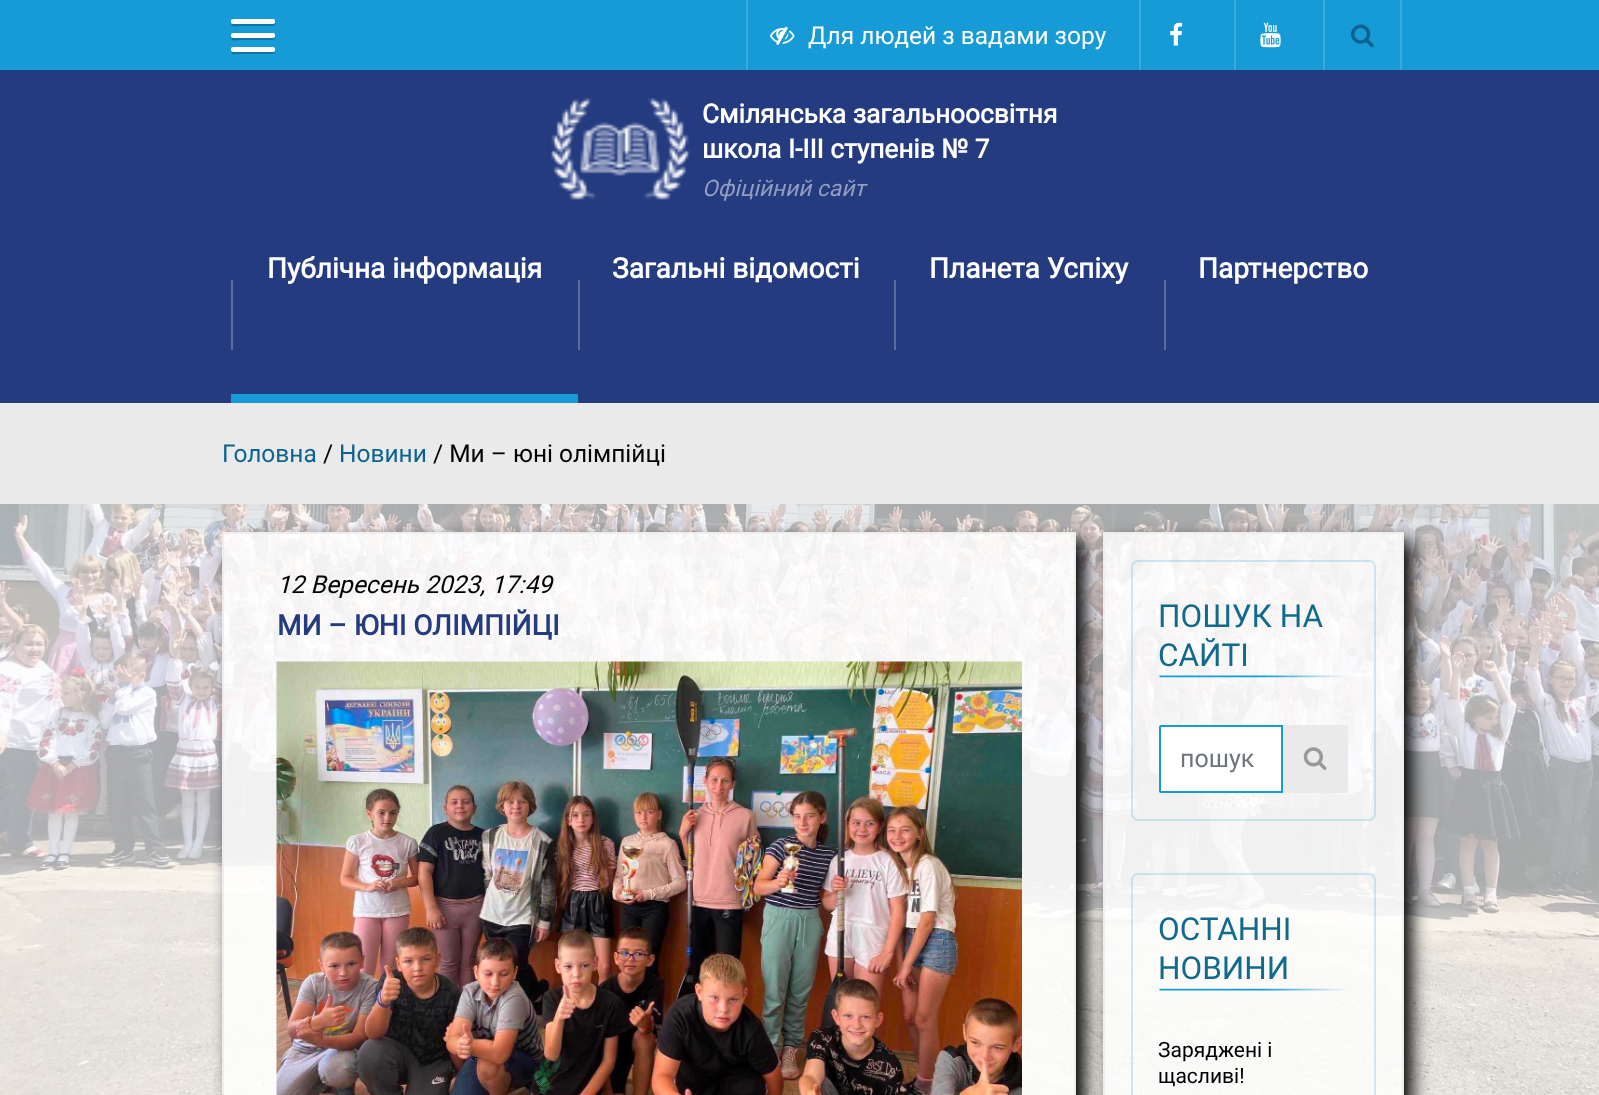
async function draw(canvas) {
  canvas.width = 1599
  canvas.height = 1095
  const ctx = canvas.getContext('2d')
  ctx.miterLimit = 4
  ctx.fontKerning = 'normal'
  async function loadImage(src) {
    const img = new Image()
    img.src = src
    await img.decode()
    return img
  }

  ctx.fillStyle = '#fff'
  ctx.fillRect(0, 0, 1599, 1095)
  ctx.drawImage(await loadImage('image0.png'), 0, 504, 1599, 591)
  ctx.fillStyle = '#253b80'
  ctx.fillRect(0, 70, 1599, 333)
  ctx.fillStyle = '#179bd7'
  ctx.fillRect(0, 0, 1599, 70)
  ctx.fillStyle = '#1174a1'
  ctx.beginPath()
  ctx.moveTo(231, 23)
  ctx.bezierCurveTo(231, 28, 236, 26, 240, 26)
  ctx.lineTo(266, 26)
  ctx.bezierCurveTo(267, 26, 278, 27, 275, 22)
  ctx.lineTo(275, 23)
  ctx.bezierCurveTo(275, 24, 274, 24, 273, 24)
  ctx.lineTo(233, 24)
  ctx.bezierCurveTo(232, 24, 231, 24, 231, 23)
  ctx.closePath()
  ctx.fill()
  ctx.fillStyle = '#fff'
  ctx.beginPath()
  ctx.roundRect(231, 19, 44, 5, 2)
  ctx.fill()
  ctx.fillStyle = '#1174a1'
  ctx.beginPath()
  ctx.moveTo(231, 37)
  ctx.bezierCurveTo(231, 42, 236, 40, 240, 40)
  ctx.lineTo(266, 40)
  ctx.bezierCurveTo(267, 40, 278, 41, 275, 36)
  ctx.lineTo(275, 37)
  ctx.bezierCurveTo(275, 38, 274, 38, 273, 38)
  ctx.lineTo(233, 38)
  ctx.bezierCurveTo(232, 38, 231, 38, 231, 37)
  ctx.closePath()
  ctx.fill()
  ctx.fillStyle = '#fff'
  ctx.beginPath()
  ctx.roundRect(231, 33, 44, 5, 2)
  ctx.fill()
  ctx.fillStyle = '#1174a1'
  ctx.beginPath()
  ctx.moveTo(231, 51)
  ctx.bezierCurveTo(231, 56, 236, 54, 240, 54)
  ctx.lineTo(266, 54)
  ctx.bezierCurveTo(267, 54, 278, 55, 275, 50)
  ctx.lineTo(275, 51)
  ctx.bezierCurveTo(275, 52, 274, 52, 273, 52)
  ctx.lineTo(233, 52)
  ctx.bezierCurveTo(232, 52, 231, 52, 231, 51)
  ctx.closePath()
  ctx.fill()
  ctx.fillStyle = '#fff'
  ctx.beginPath()
  ctx.roundRect(231, 47, 44, 5, 2)
  ctx.fill()
  ctx.fillStyle = '#3aaadd'
  ctx.fillRect(746, 0, 2, 70)
  ctx.drawImage(await loadImage('image1.png'), 770, 26, 25, 19)
  ctx.font = '24.5px Roboto'
  ctx.fillStyle = '#fff'
  ctx.fillText('Для людей з вадами зору', 808, 44)
  ctx.fillStyle = '#3aaadd'
  ctx.fillRect(1139, 0, 2, 70)
  ctx.drawImage(await loadImage('image2.png'), 1170, 22, 13, 24)
  ctx.fillRect(1234, 0, 2, 70)
  ctx.drawImage(await loadImage('image3.png'), 1260, 22, 21, 26)
  ctx.fillRect(1400, 0, 2, 70)
  ctx.fillRect(1323, 0, 2, 70)
  ctx.drawImage(await loadImage('image4.png'), 1351, 24, 23, 24)
  ctx.drawImage(await loadImage('image5.png'), 551, 98, 140, 102)
  ctx.font = 'bold 26.25px Roboto'
  ctx.fillStyle = '#fff'
  ctx.fillText('Смілянська загальноосвітня', 702, 123)
  ctx.fillText('школа І-ІІІ ступенів № 7', 702, 158)
  ctx.font = 'italic 22.75px Roboto'
  ctx.fillStyle = '#929dc0'
  ctx.fillText('Офіційний сайт', 702, 196)
  ctx.font = 'bold 28px Roboto'
  ctx.fillStyle = '#fff'
  ctx.fillText('Публічна інформація', 267, 278)
  ctx.fillStyle = '#5c6ca0'
  ctx.fillRect(231, 280, 2, 70)
  ctx.fillStyle = '#179bd7'
  ctx.fillRect(231, 394, 347, 9)
  ctx.fillStyle = '#fff'
  ctx.fillText('Загальні відомості', 612, 278)
  ctx.fillStyle = '#5c6ca0'
  ctx.fillRect(578, 280, 2, 70)
  ctx.fillStyle = '#fff'
  ctx.fillText('Планета Успіху', 929, 278)
  ctx.fillStyle = '#5c6ca0'
  ctx.fillRect(894, 280, 2, 70)
  ctx.fillStyle = '#fff'
  ctx.fillText('Партнерство', 1198, 278)
  ctx.fillStyle = '#5c6ca0'
  ctx.fillRect(1164, 280, 2, 70)
  ctx.fillStyle = '#eaeaea'
  ctx.fillRect(0, 403, 1599, 101)
  ctx.font = '24.5px Roboto'
  ctx.fillStyle = '#0d638f'
  ctx.fillText('Головна', 222, 462)
  ctx.fillStyle = '#000'
  ctx.fillText('/', 323, 462)
  ctx.fillStyle = '#0d638f'
  ctx.fillText('Новини', 339, 462)
  ctx.fillStyle = '#000'
  ctx.fillText('/ Ми – юні олімпійці', 433, 462)
  ctx.fillStyle = '#fbfcfda8'
  ctx.fillRect(0, 504, 1599, 591)
  ctx.save()
  ctx.beginPath()
  ctx.moveTo(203, 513)
  ctx.lineTo(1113, 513)
  ctx.lineTo(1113, 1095)
  ctx.lineTo(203, 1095)
  ctx.closePath()
  ctx.moveTo(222, 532)
  ctx.lineTo(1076, 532)
  ctx.lineTo(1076, 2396)
  ctx.lineTo(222, 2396)
  ctx.closePath()
  ctx.clip('evenodd')
  ctx.fillStyle = '#000'
  ctx.filter = 'blur(9px)'
  ctx.beginPath()
  ctx.rect(231, 541, 854, 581)
  ctx.fill()
  ctx.filter = 'none'
  ctx.restore()
  ctx.fillStyle = '#ffffffd4'
  ctx.beginPath()
  ctx.rect(223, 533, 852, 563)
  ctx.fill()
  ctx.strokeStyle = '#eee'
  ctx.lineWidth = 2
  ctx.stroke()
  ctx.font = 'italic 24.5px Roboto'
  ctx.fillStyle = '#000'
  ctx.fillText('12 Вересень 2023, 17:49', 277, 593)
  ctx.font = 'bold 28px Roboto'
  ctx.fillStyle = '#253b80'
  ctx.fillText('МИ – ЮНІ ОЛІМПІЙЦІ', 277, 635)
  ctx.drawImage(await loadImage('image6.png'), 276, 661, 746, 434)
  ctx.save()
  ctx.beginPath()
  ctx.moveTo(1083, 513)
  ctx.lineTo(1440, 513)
  ctx.lineTo(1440, 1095)
  ctx.lineTo(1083, 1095)
  ctx.closePath()
  ctx.moveTo(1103, 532)
  ctx.lineTo(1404, 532)
  ctx.lineTo(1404, 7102)
  ctx.lineTo(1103, 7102)
  ctx.closePath()
  ctx.clip('evenodd')
  ctx.fillStyle = '#000'
  ctx.filter = 'blur(9px)'
  ctx.beginPath()
  ctx.rect(1111, 541, 301, 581)
  ctx.fill()
  ctx.filter = 'none'
  ctx.restore()
  ctx.fillStyle = '#ffffffd4'
  ctx.beginPath()
  ctx.rect(1104, 533, 299, 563)
  ctx.fill()
  ctx.stroke()
  ctx.beginPath()
  ctx.roundRect(1132, 561, 243, 259, 6)
  ctx.strokeStyle = '#179bd733'
  ctx.stroke()
  ctx.drawImage(await loadImage('image7.png'), 1159, 675, 187, 3)
  ctx.font = '31.5px Roboto'
  ctx.fillStyle = '#106a8c'
  ctx.fillText('ПОШУК НА', 1158, 627)
  ctx.fillText('САЙТІ', 1158, 666)
  ctx.fillStyle = '#fff'
  ctx.beginPath()
  ctx.roundRect(1160, 726, 122, 66, [1, 0, 0, 1])
  ctx.fill()
  ctx.strokeStyle = '#179bd7'
  ctx.stroke()
  ctx.font = '25px Roboto'
  ctx.fillStyle = '#6c757d'
  ctx.fillText('пошук', 1180, 767)
  ctx.fillStyle = '#eaeaea'
  ctx.fillRect(1283, 725, 65, 68)
  ctx.drawImage(await loadImage('image8.png'), 1303, 747, 24, 23)
  ctx.beginPath()
  ctx.roundRect(1132, 874, 243, 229, 6)
  ctx.strokeStyle = '#179bd733'
  ctx.stroke()
  ctx.drawImage(await loadImage('image9.png'), 1159, 988, 187, 3)
  ctx.font = '31.5px Roboto'
  ctx.fillStyle = '#106a8c'
  ctx.fillText('ОСТАННІ', 1158, 940)
  ctx.fillText('НОВИНИ', 1158, 979)
  ctx.font = '21px Roboto'
  ctx.fillStyle = '#000'
  ctx.fillText('Заряджені і', 1158, 1057)
  ctx.fillText('щасливі!', 1158, 1083)
}

draw(document.querySelector('canvas'))
